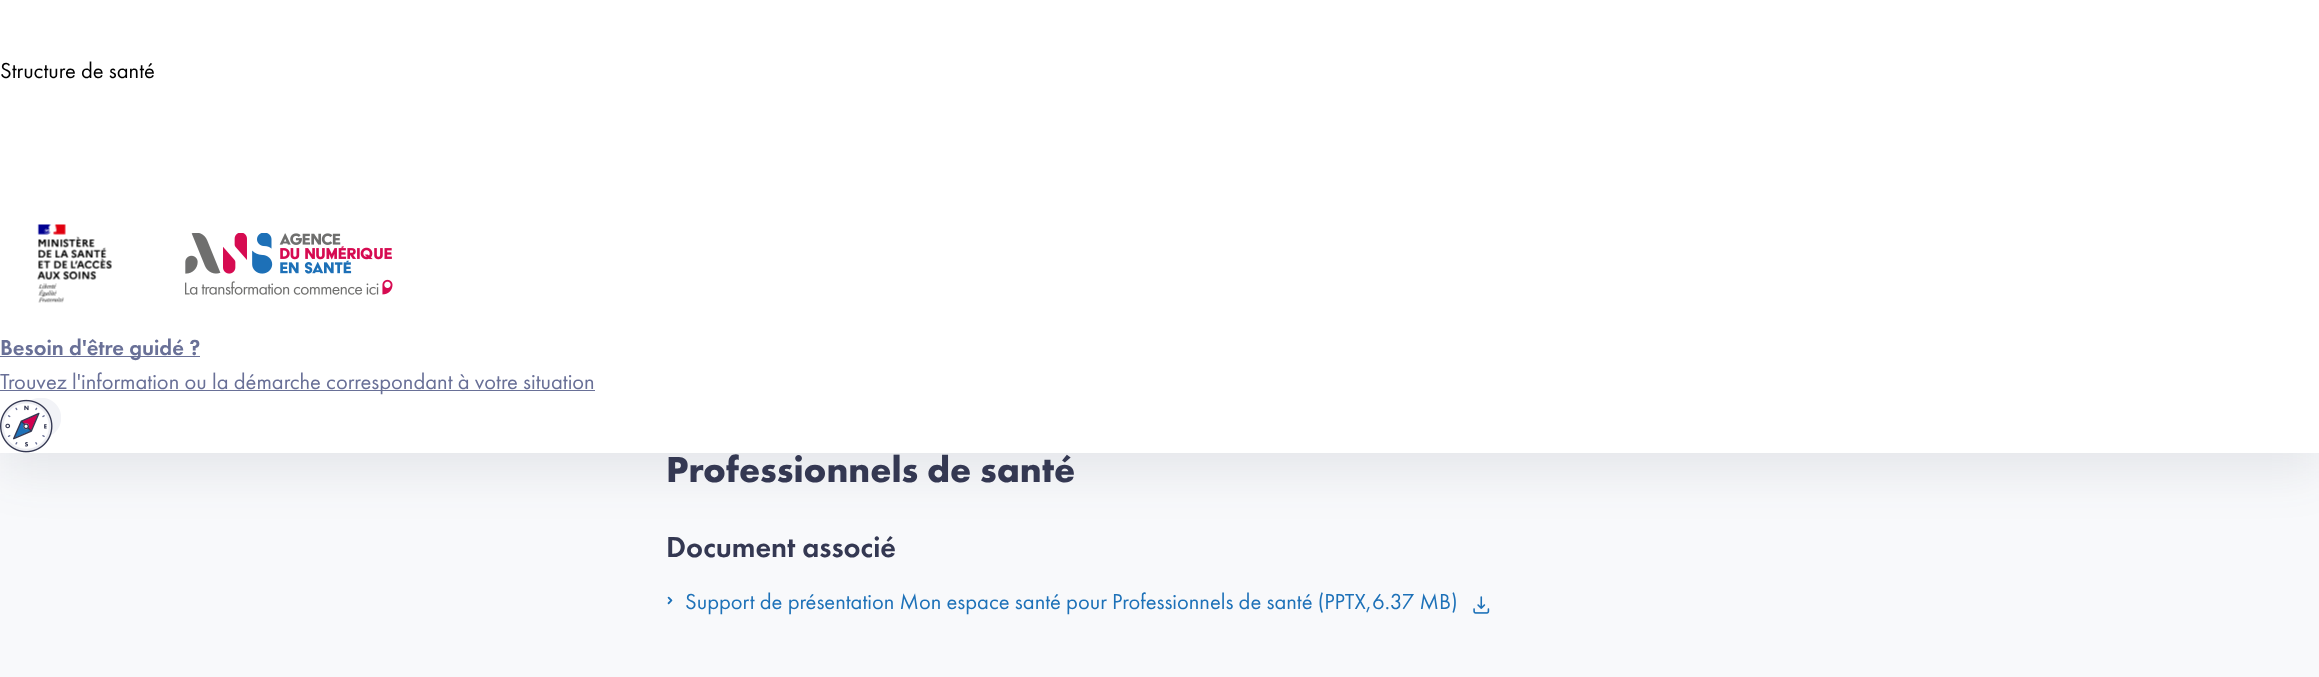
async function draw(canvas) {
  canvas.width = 2319
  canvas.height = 677
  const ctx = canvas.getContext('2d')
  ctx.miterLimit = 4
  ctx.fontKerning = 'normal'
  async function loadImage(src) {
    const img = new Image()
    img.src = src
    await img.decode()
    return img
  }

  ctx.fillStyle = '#f8f9fb'
  ctx.fillRect(0, 0, 2319, 677)
  ctx.fillStyle = '#3438521a'
  ctx.filter = 'blur(25px)'
  ctx.beginPath()
  ctx.rect(0, 19, 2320, 452)
  ctx.fill()
  ctx.filter = 'none'
  ctx.fillStyle = '#fff'
  ctx.fillRect(0, 0, 2319, 453)
  ctx.font = '22.5px Futura PT'
  ctx.fillStyle = '#000'
  ctx.fillText('Structure de santé', 0, 78)
  ctx.drawImage(await loadImage('image0.png'), 37, 224, 75, 79)
  ctx.drawImage(await loadImage('image1.png'), 185, 233, 208, 62)
  ctx.fillStyle = '#697097'
  ctx.fillRect(0, 356, 200, 1)
  ctx.font = '500 22.5px Futura PT'
  ctx.fillText('Besoin d\'être guidé ?', 0, 355)
  ctx.fillRect(0, 390, 595, 1)
  ctx.font = '22.5px Futura PT'
  ctx.fillText('Trouvez l\'information ou la démarche correspondant à votre situation', 0, 389)
  ctx.drawImage(await loadImage('image2.png'), 0, 398, 61, 55)
  ctx.font = 'bold 37.5px Futura PT'
  ctx.fillStyle = '#343852'
  ctx.fillText('Professionnels de santé', 666, 482)
  ctx.font = '500 30px Futura PT'
  ctx.fillText('Document associé', 666, 557)
  ctx.drawImage(await loadImage('image3.png'), 667, 596, 6, 9)
  ctx.font = '22.5px Futura PT'
  ctx.fillStyle = '#1d71b8'
  ctx.fillText('Support de présentation Mon espace santé pour Professionnels de santé (PPTX,6.37 MB)', 685, 609)
  ctx.drawImage(await loadImage('image4.png'), 1473, 596, 17, 18)
}

draw(document.querySelector('canvas'))
